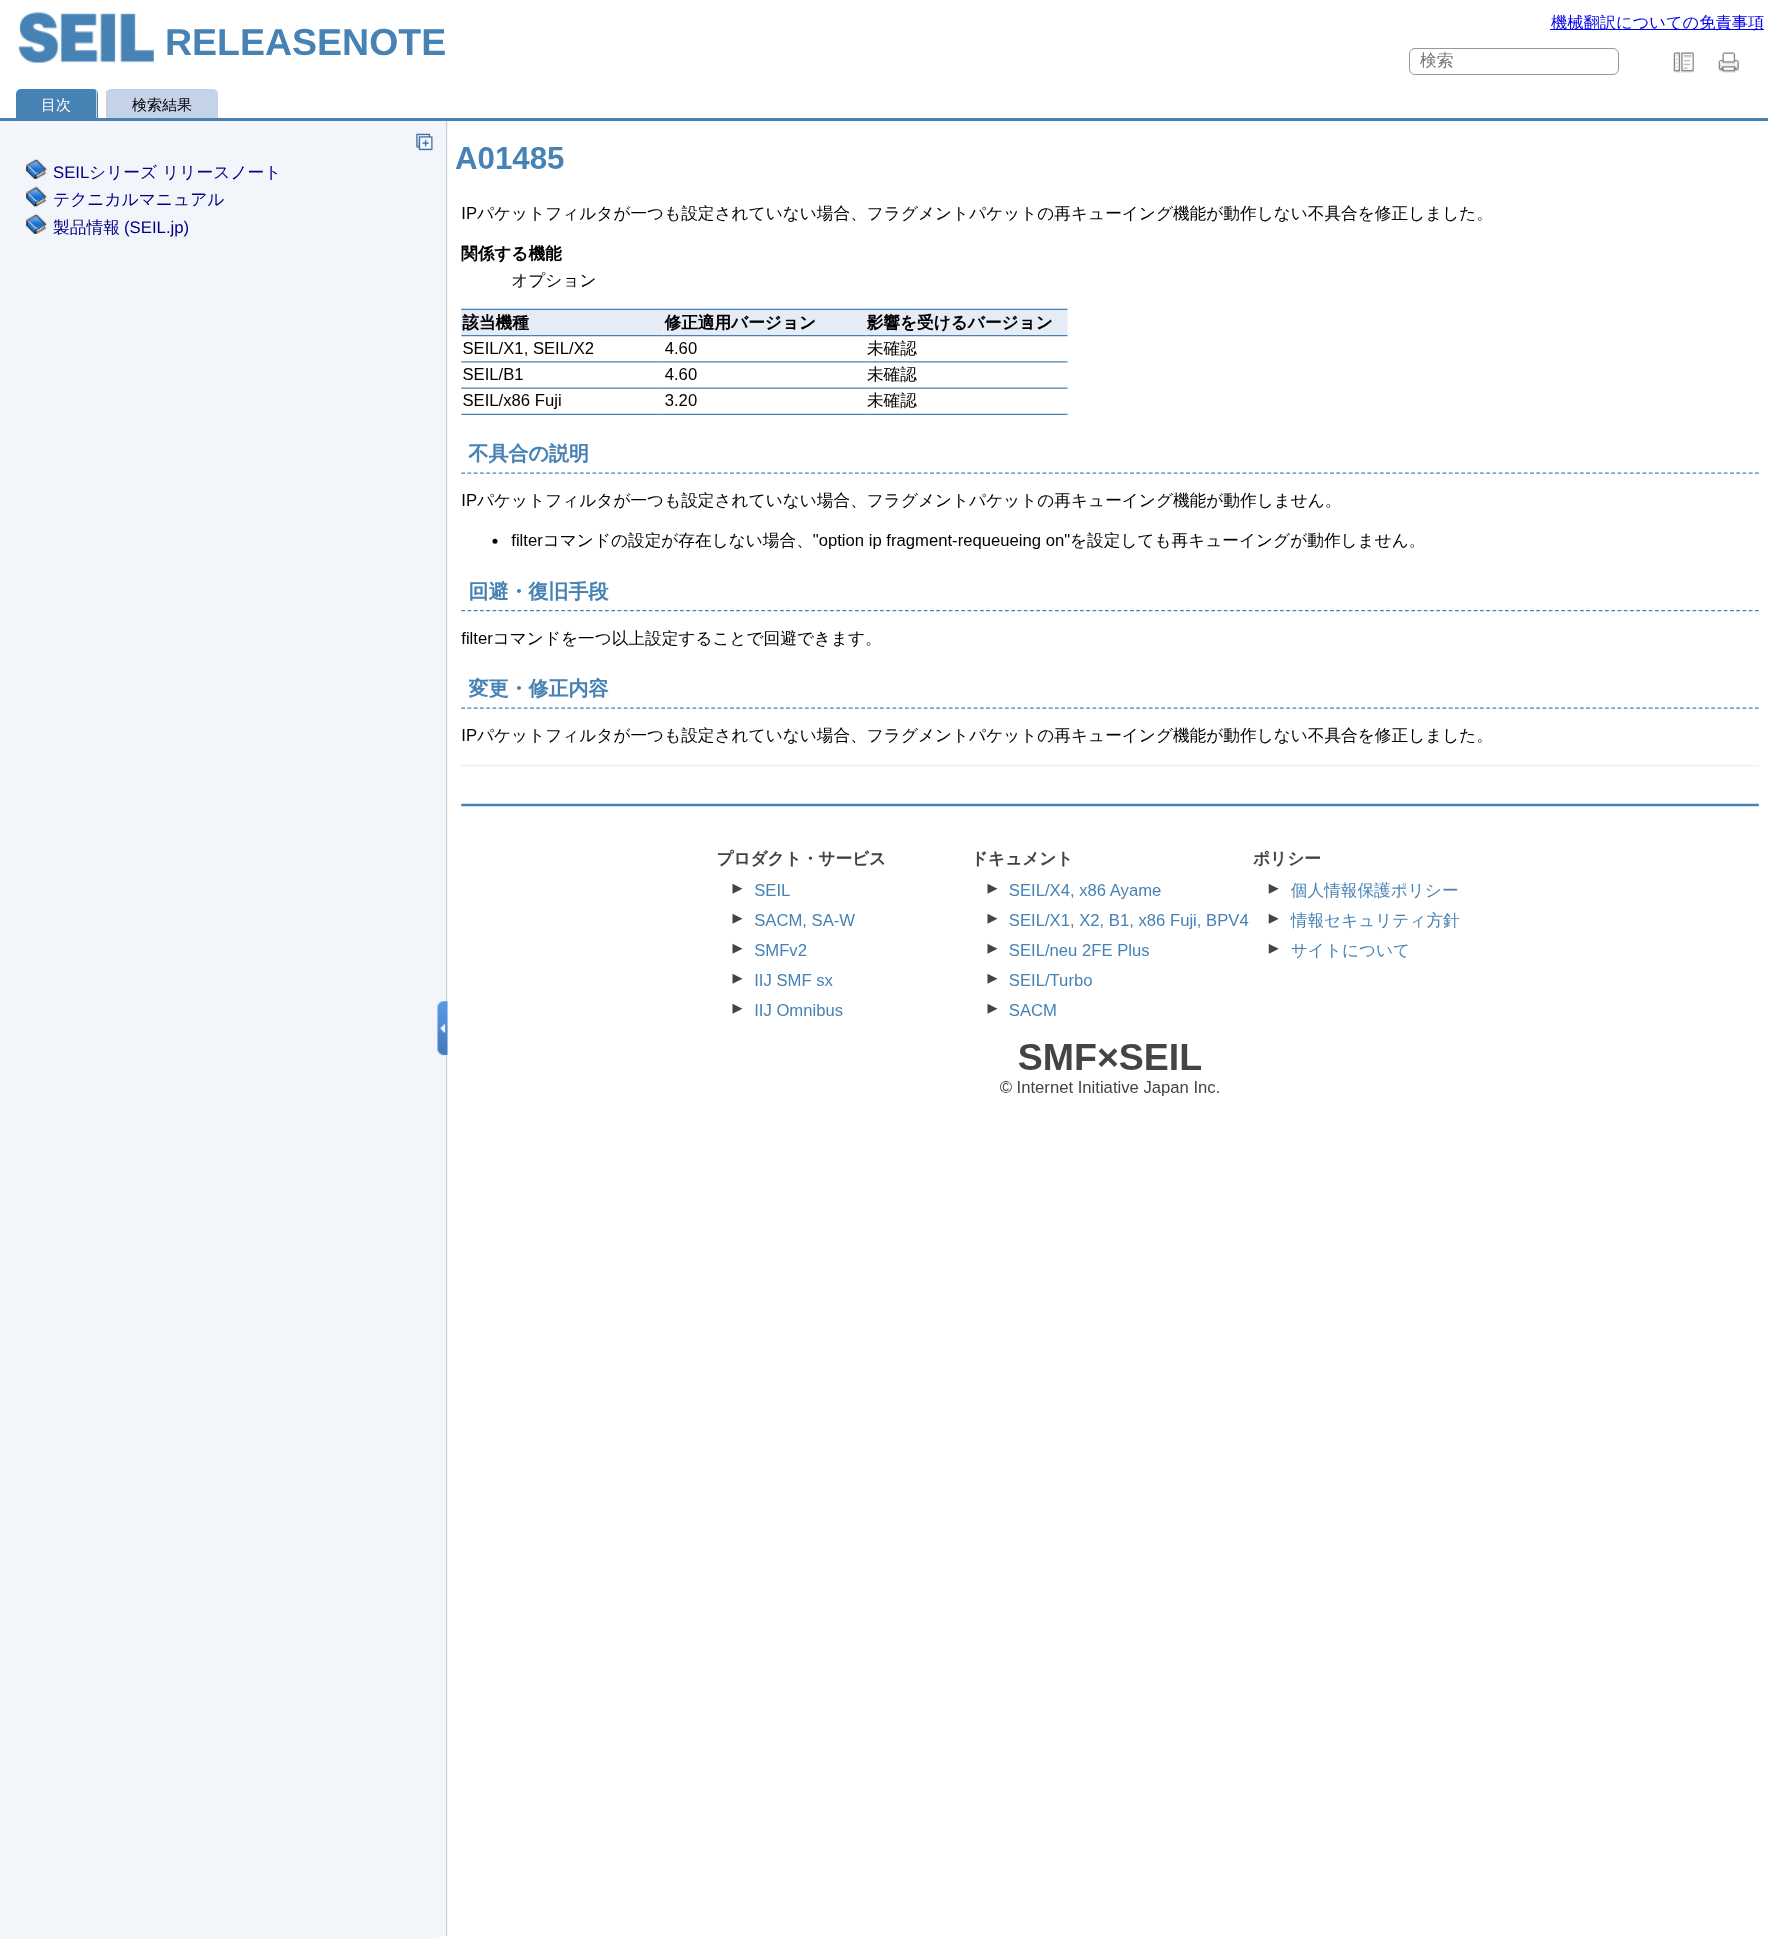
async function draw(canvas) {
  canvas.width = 1768
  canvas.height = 1939
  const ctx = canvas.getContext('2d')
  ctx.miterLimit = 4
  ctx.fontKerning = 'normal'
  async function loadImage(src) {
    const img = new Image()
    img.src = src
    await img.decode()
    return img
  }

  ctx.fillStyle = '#fff'
  ctx.fillRect(0, 0, 1768, 1939)
  ctx.drawImage(await loadImage('image0.png'), 18, 12, 136, 51)
  ctx.fillStyle = '#00e'
  ctx.fillRect(1550, 29, 214, 1)
  ctx.font = '500 16.25px WenQuanYi Zen Hei'
  ctx.fillText('機械翻訳についての免責事項', 1551, 28)
  ctx.font = 'bold 37.5px Liberation Sans'
  ctx.fillStyle = '#4682b4'
  ctx.fillText('RELEASENOTE', 165, 55)
  ctx.beginPath()
  ctx.roundRect(1409.5, 48.5, 209, 26, 5.5)
  ctx.strokeStyle = '#999'
  ctx.stroke()
  ctx.font = '500 16.75px WenQuanYi Zen Hei'
  ctx.fillStyle = '#757575'
  ctx.fillText('検索', 1420, 66)
  ctx.drawImage(await loadImage('image1.png'), 1673, 52, 21, 21)
  ctx.drawImage(await loadImage('image2.png'), 1718, 52, 21, 21)
  ctx.fillStyle = '#4682b4'
  ctx.beginPath()
  ctx.roundRect(16, 89, 82, 29, [5, 5, 0, 0])
  ctx.fill()
  ctx.fillStyle = '#ccc'
  ctx.fillRect(96, 91, 1, 27)
  ctx.font = '500 15px WenQuanYi Zen Hei'
  ctx.fillStyle = '#fff'
  ctx.fillText('目次', 41, 110)
  ctx.fillStyle = '#c5d3e8'
  ctx.beginPath()
  ctx.roundRect(106, 89, 112, 29, [5, 5, 0, 0])
  ctx.fill()
  ctx.fillStyle = '#ccc'
  ctx.fillRect(106, 91, 1, 27)
  ctx.fillStyle = '#000'
  ctx.fillText('検索結果', 132, 110)
  ctx.fillStyle = '#f2f5fa'
  ctx.fillRect(439, 121, 9, 1815)
  ctx.fillStyle = '#ccc'
  ctx.fillRect(446, 120, 1, 1816)
  ctx.fillStyle = '#4682b4'
  ctx.fillRect(0, 118, 1768, 3)
  ctx.fillStyle = '#f2f5fa'
  ctx.fillRect(0, 121, 439, 1818)
  ctx.drawImage(await loadImage('image3.png'), 416, 133, 17, 18)
  ctx.drawImage(await loadImage('image4.png'), 26, 158, 21, 21)
  ctx.font = '16.75px Liberation Sans'
  ctx.fillStyle = '#000080'
  ctx.fillText('SEIL', 53, 178)
  ctx.font = '500 16.75px WenQuanYi Zen Hei'
  ctx.fillText('シリーズ リリースノート', 89, 178)
  ctx.drawImage(await loadImage('image5.png'), 26, 186, 21, 21)
  ctx.fillText('テクニカルマニュアル', 53, 205)
  ctx.drawImage(await loadImage('image4.png'), 26, 213, 21, 21)
  ctx.fillText('製品情報', 53, 233)
  ctx.font = '16.75px Liberation Sans'
  ctx.fillText('(SEIL.jp)', 124, 233)
  ctx.drawImage(await loadImage('image6.png'), 437, 1001, 11, 56)
  ctx.drawImage(await loadImage('image7.png'), 455, 147, 1304, 949)
}

draw(document.querySelector('canvas'))
